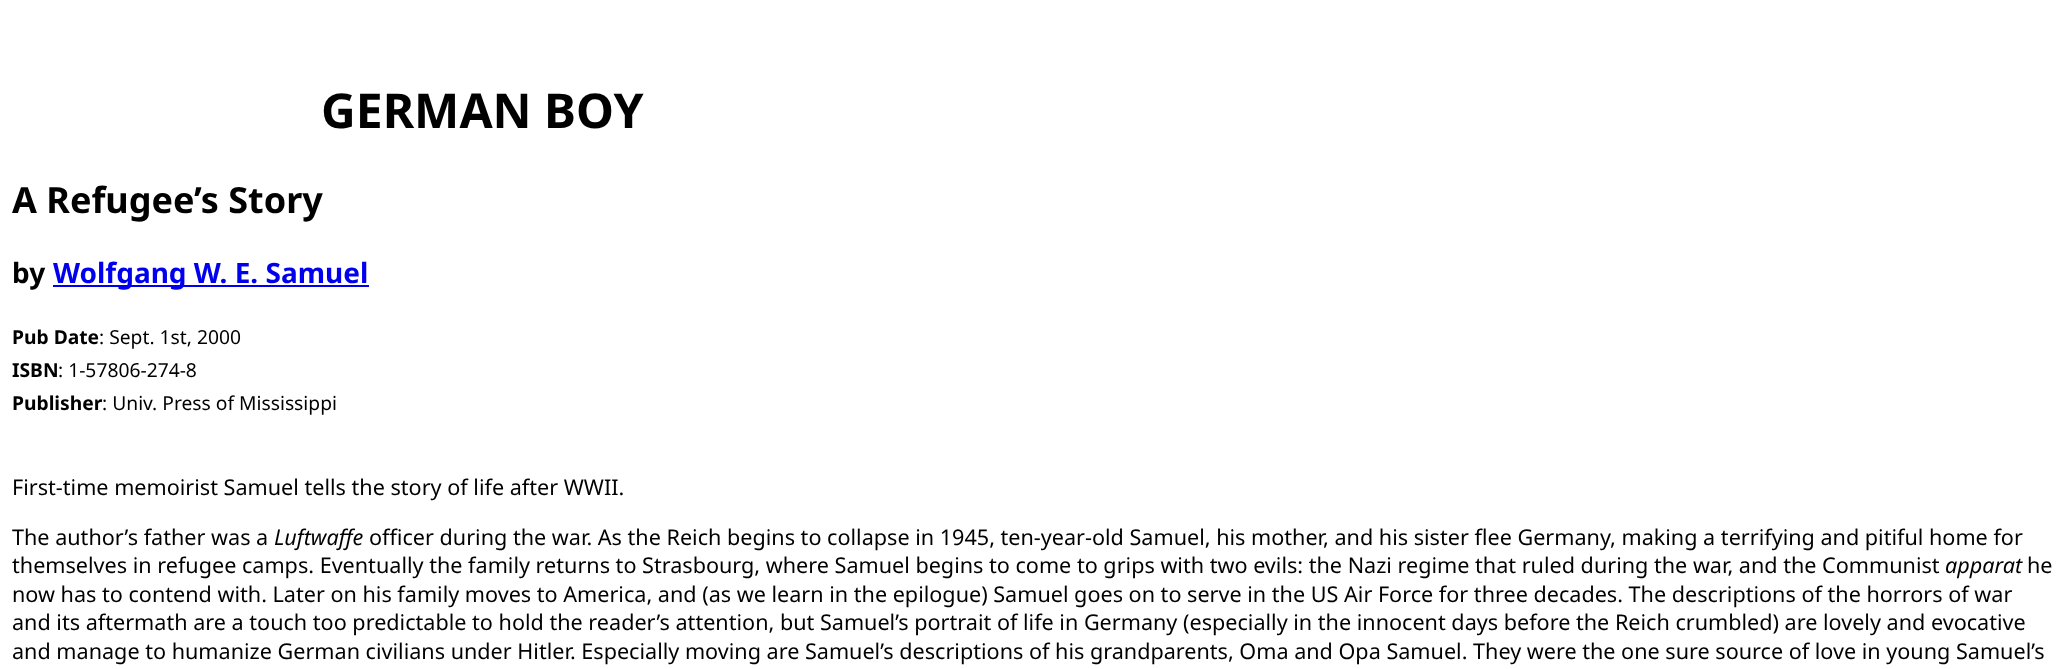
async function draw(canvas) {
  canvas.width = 2066
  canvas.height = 669
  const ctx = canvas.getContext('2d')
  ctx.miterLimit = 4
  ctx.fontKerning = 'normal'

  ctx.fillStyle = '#fff'
  ctx.fillRect(0, 0, 2066, 669)
  ctx.font = 'bold 48px Noto Sans'
  ctx.fillStyle = '#000'
  ctx.fillText('GERMAN BOY', 321, 128)
  ctx.font = 'bold 36px Noto Sans'
  ctx.fillText('A Refugee’s Story', 12, 213)
  ctx.font = 'bold 28px Noto Sans'
  ctx.fillText('by', 12, 283)
  ctx.fillStyle = '#00e'
  ctx.fillRect(53, 285, 316, 2)
  ctx.fillText('Wolfgang W. E. Samuel', 53, 283)
  ctx.font = 'bold 19.25px Noto Sans'
  ctx.fillStyle = '#000'
  ctx.fillText('Pub Date', 12, 344)
  ctx.font = '19.25px Noto Sans'
  ctx.fillText(': Sept. 1st, 2000', 99, 344)
  ctx.font = 'bold 19.25px Noto Sans'
  ctx.fillText('ISBN', 12, 377)
  ctx.font = '19.25px Noto Sans'
  ctx.fillText(': 1-57806-274-8', 58, 377)
  ctx.font = 'bold 19.25px Noto Sans'
  ctx.fillText('Publisher', 12, 410)
  ctx.font = '19.25px Noto Sans'
  ctx.fillText(': Univ. Press of Mississippi', 102, 410)
  ctx.font = '21.6px Noto Sans'
  ctx.fillText('First-time memoirist Samuel tells the story of life after WWII.', 12, 495)
  ctx.fillText('The author’s father was a', 12, 545)
  ctx.font = 'italic 21.6px Noto Sans'
  ctx.fillText('Luftwaffe', 274, 545)
  ctx.font = '21.6px Noto Sans'
  ctx.fillText('officer during the war. As the Reich begins to collapse in 1945, ten-year-old Samuel, his mother, and his sister flee Germany, making a terrifying and pitiful home for', 369, 545)
  ctx.fillText('themselves in refugee camps. Eventually the family returns to Strasbourg, where Samuel begins to come to grips with two evils: the Nazi regime that ruled during the war, and the Communist', 12, 573)
  ctx.font = 'italic 21.6px Noto Sans'
  ctx.fillText('apparat', 1945, 573)
  ctx.font = '21.6px Noto Sans'
  ctx.fillText('he', 2027, 573)
  ctx.fillText('now has to contend with. Later on his family moves to America, and (as we learn in the epilogue) Samuel goes on to serve in the US Air Force for three decades. The descriptions of the horrors of war', 12, 602)
  ctx.fillText('and its aftermath are a touch too predictable to hold the reader’s attention, but Samuel’s portrait of life in Germany (especially in the innocent days before the Reich crumbled) are lovely and evocative', 12, 630)
  ctx.fillText('and manage to humanize German civilians under Hitler. Especially moving are Samuel’s descriptions of his grandparents, Oma and Opa Samuel. They were the one sure source of love in young Samuel’s', 12, 659)
}

draw(document.querySelector('canvas'))
